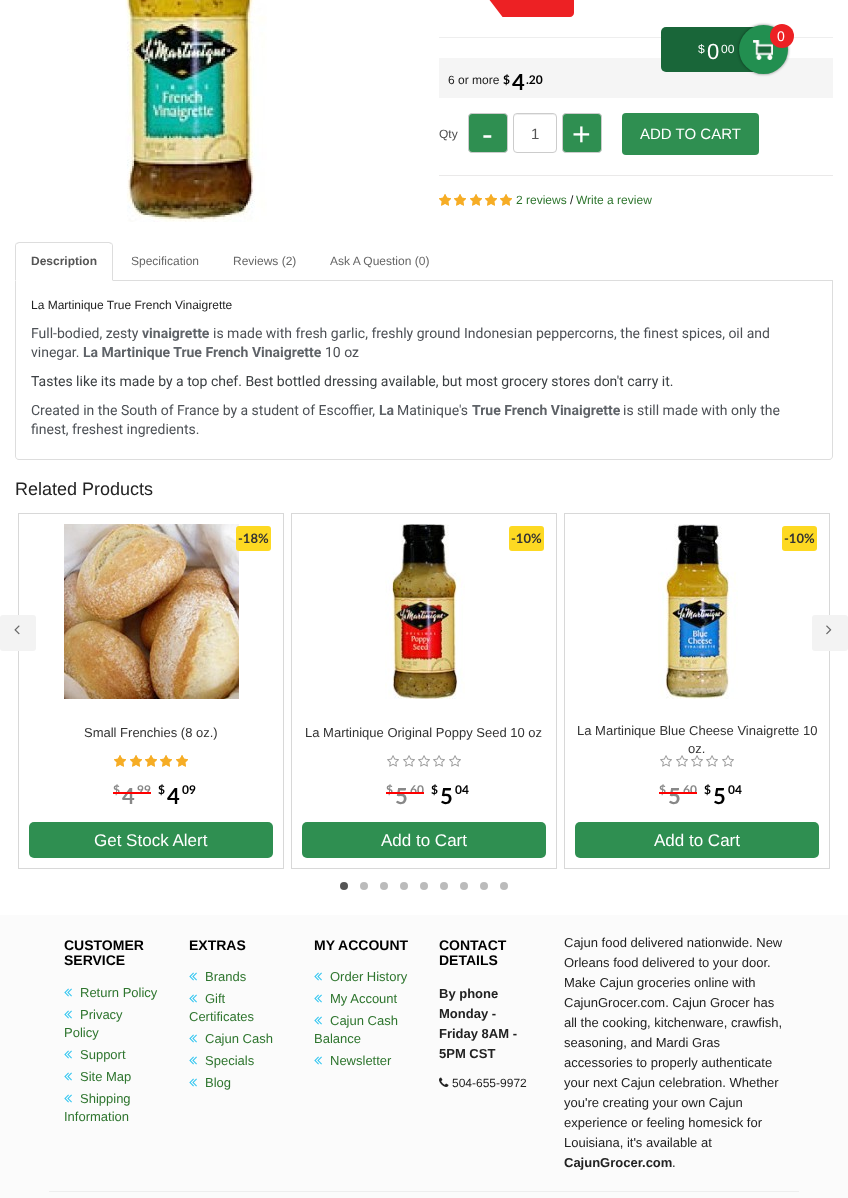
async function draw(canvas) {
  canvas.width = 848
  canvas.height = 1198
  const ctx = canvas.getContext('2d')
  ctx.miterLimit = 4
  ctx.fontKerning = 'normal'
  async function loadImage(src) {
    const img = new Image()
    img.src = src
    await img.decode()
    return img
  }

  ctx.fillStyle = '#fff'
  ctx.fillRect(0, 0, 848, 1198)
  ctx.fillStyle = '#eee'
  ctx.fillRect(439, 37, 394, 1)
  ctx.fillStyle = '#f5f5f5'
  ctx.fillRect(439, 58, 394, 40)
  ctx.fillStyle = '#196639'
  ctx.beginPath()
  ctx.roundRect(661, 27, 115, 45, 5)
  ctx.fill()
  ctx.fillStyle = '#00000080'
  ctx.filter = 'blur(1.5px)'
  ctx.beginPath()
  ctx.roundRect(739, 25, 49, 49, 24.5)
  ctx.fill()
  ctx.filter = 'none'
  ctx.fillStyle = '#228f50'
  ctx.beginPath()
  ctx.arc(763.5, 49.5, 24.5, 0, 2 * Math.PI)
  ctx.fill()
  ctx.drawImage(await loadImage('image0.png'), 753, 40, 20, 20)
  ctx.fillStyle = '#ed2124'
  ctx.beginPath()
  ctx.arc(782, 36, 12, 0, 2 * Math.PI)
  ctx.fill()
  ctx.font = '14px Liberation Sans'
  ctx.fillStyle = '#fff'
  ctx.fillText('0', 777, 41)
  ctx.font = '12px Liberation Sans'
  ctx.fillText('$', 698, 53)
  ctx.font = '22px Liberation Sans'
  ctx.fillText('0', 707, 59)
  ctx.font = '12px Liberation Sans'
  ctx.fillText('00', 721, 53)
  ctx.drawImage(await loadImage('image1.png'), 125, 0, 142, 222)
  ctx.fillStyle = '#ed2124'
  ctx.beginPath()
  ctx.moveTo(483, -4)
  ctx.lineTo(570, -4)
  ctx.bezierCurveTo(572, -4, 574, -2, 574, 0)
  ctx.lineTo(574, 13)
  ctx.bezierCurveTo(574, 15, 572, 17, 570, 17)
  ctx.lineTo(483, 17)
  ctx.closePath()
  ctx.fill()
  ctx.drawImage(await loadImage('image2.png'), 483, 0, 20, 17)
  ctx.fillStyle = '#222'
  ctx.fillText('6 or more', 448, 84)
  ctx.font = 'bold 12px Lato'
  ctx.fillStyle = '#000'
  ctx.fillText('$', 503, 84)
  ctx.font = 'bold 22px Lato'
  ctx.fillText('4', 512, 90)
  ctx.font = 'bold 12px Lato'
  ctx.fillText('.20', 526, 84)
  ctx.fillStyle = '#eae9e9'
  ctx.fillRect(439, 175, 394, 1)
  ctx.font = '12px Liberation Sans'
  ctx.fillStyle = '#4d4d4d'
  ctx.fillText('Qty', 439, 138)
  ctx.fillStyle = '#2f8f51'
  ctx.beginPath()
  ctx.roundRect(468.5, 113.5, 39, 39, 3.5)
  ctx.fill()
  ctx.strokeStyle = '#ccc'
  ctx.stroke()
  ctx.font = '32px Liberation Sans'
  ctx.fillStyle = '#fff'
  ctx.fillText('-', 482, 145)
  ctx.fillStyle = '#ececec'
  ctx.beginPath()
  ctx.moveTo(517, 115)
  ctx.lineTo(553, 115)
  ctx.bezierCurveTo(555, 115, 556, 116, 556, 118)
  ctx.bezierCurveTo(556, 113, 551, 114, 547, 114)
  ctx.lineTo(523, 114)
  ctx.bezierCurveTo(519, 114, 514, 113, 514, 118)
  ctx.bezierCurveTo(514, 116, 515, 115, 517, 115)
  ctx.closePath()
  ctx.fill()
  ctx.beginPath()
  ctx.roundRect(513.5, 113.5, 43, 39, 3.5)
  ctx.stroke()
  ctx.font = '15px Liberation Sans'
  ctx.fillStyle = '#555'
  ctx.fillText('1', 531, 139)
  ctx.fillStyle = '#2f8f51'
  ctx.beginPath()
  ctx.roundRect(562.5, 113.5, 39, 39, 3.5)
  ctx.fill()
  ctx.stroke()
  ctx.font = '32px Liberation Sans'
  ctx.fillStyle = '#fff'
  ctx.fillText('+', 572, 145)
  ctx.fillStyle = '#2f8f51'
  ctx.beginPath()
  ctx.roundRect(622, 113, 137, 42, 4)
  ctx.fill()
  ctx.font = '15px Liberation Sans'
  ctx.fillStyle = '#fff'
  ctx.fillText('ADD TO CART', 640, 139)
  ctx.drawImage(await loadImage('image3.png'), 439, 194, 12, 12)
  ctx.drawImage(await loadImage('image4.png'), 439, 194, 12, 12)
  ctx.drawImage(await loadImage('image3.png'), 454, 194, 12, 12)
  ctx.drawImage(await loadImage('image4.png'), 454, 194, 12, 12)
  ctx.drawImage(await loadImage('image3.png'), 470, 194, 12, 12)
  ctx.drawImage(await loadImage('image4.png'), 470, 194, 12, 12)
  ctx.drawImage(await loadImage('image3.png'), 485, 194, 12, 12)
  ctx.drawImage(await loadImage('image4.png'), 485, 194, 12, 12)
  ctx.drawImage(await loadImage('image3.png'), 500, 194, 12, 12)
  ctx.drawImage(await loadImage('image4.png'), 500, 194, 12, 12)
  ctx.font = '12px Liberation Sans'
  ctx.fillStyle = '#2e752e'
  ctx.fillText('2 reviews', 516, 204)
  ctx.fillStyle = '#222'
  ctx.fillText('/', 570, 204)
  ctx.fillStyle = '#2e752e'
  ctx.fillText('Write a review', 576, 204)
  ctx.fillStyle = '#ddd'
  ctx.fillRect(113, 280, 720, 1)
  ctx.beginPath()
  ctx.moveTo(19, 242)
  ctx.lineTo(16, 243)
  ctx.lineTo(17, 244)
  ctx.lineTo(19, 243)
  ctx.lineTo(109, 243)
  ctx.lineTo(111, 244)
  ctx.lineTo(112, 243)
  ctx.lineTo(109, 242)
  ctx.closePath()
  ctx.fill()
  ctx.beginPath()
  ctx.moveTo(113, 281)
  ctx.lineTo(113, 246)
  ctx.bezierCurveTo(113, 245, 112.5, 244, 112, 243)
  ctx.lineTo(111, 244)
  ctx.bezierCurveTo(112, 244, 112, 245, 112, 246)
  ctx.lineTo(112, 280)
  ctx.closePath()
  ctx.fill()
  ctx.beginPath()
  ctx.moveTo(15, 281)
  ctx.lineTo(16, 280)
  ctx.lineTo(16, 246)
  ctx.bezierCurveTo(16, 245, 16, 244, 17, 244)
  ctx.lineTo(16, 243)
  ctx.bezierCurveTo(15.5, 244, 15, 245, 15, 246)
  ctx.closePath()
  ctx.fill()
  ctx.font = 'bold 12px Liberation Sans'
  ctx.fillStyle = '#555'
  ctx.fillText('Description', 31, 265)
  ctx.font = '12px Liberation Sans'
  ctx.fillStyle = '#666'
  ctx.fillText('Specification', 131, 265)
  ctx.fillText('Reviews (2)', 233, 265)
  ctx.fillText('Ask A Question (0)', 330, 265)
  ctx.fillStyle = '#ddd'
  ctx.beginPath()
  ctx.moveTo(15, 281)
  ctx.lineTo(833, 281)
  ctx.lineTo(833, 456)
  ctx.bezierCurveTo(833, 458, 831, 460, 829, 460)
  ctx.lineTo(19, 460)
  ctx.bezierCurveTo(17, 460, 15, 458, 15, 456)
  ctx.closePath()
  ctx.moveTo(16, 281)
  ctx.lineTo(832, 281)
  ctx.lineTo(832, 456)
  ctx.bezierCurveTo(832, 458, 831, 459, 829, 459)
  ctx.lineTo(19, 459)
  ctx.bezierCurveTo(17, 459, 16, 458, 16, 456)
  ctx.closePath()
  ctx.fill('evenodd')
  ctx.fillStyle = '#222'
  ctx.fillText('La Martinique True French Vinaigrette', 31, 309)
  ctx.font = '14px Roboto'
  ctx.fillStyle = '#4d5156'
  ctx.fillText('Full-bodied, zesty', 31, 338)
  ctx.font = 'bold 14px Roboto'
  ctx.fillStyle = '#5f6368'
  ctx.fillText('vinaigrette', 142, 338)
  ctx.font = '14px Roboto'
  ctx.fillStyle = '#4d5156'
  ctx.fillText('is made with fresh garlic, freshly ground Indonesian peppercorns, the finest spices, oil and', 213, 338)
  ctx.fillText('vinegar.', 31, 357)
  ctx.font = 'bold 14px Roboto'
  ctx.fillStyle = '#5f6368'
  ctx.fillText('La Martinique True French Vinaigrette', 83, 357)
  ctx.font = '14px Roboto'
  ctx.fillStyle = '#4d5156'
  ctx.fillText('10 oz', 325, 357)
  ctx.fillStyle = '#3c4043'
  ctx.fillText('Tastes like its made by a top chef. Best bottled dressing available, but most grocery stores don\'t carry it.', 31, 386)
  ctx.fillStyle = '#4d5156'
  ctx.fillText('Created in the South of France by a student of Escoffier,', 31, 415)
  ctx.font = 'bold 14px Roboto'
  ctx.fillStyle = '#5f6368'
  ctx.fillText('La', 379, 415)
  ctx.font = '14px Roboto'
  ctx.fillStyle = '#4d5156'
  ctx.fillText('Matinique\'s', 397, 415)
  ctx.font = 'bold 14px Roboto'
  ctx.fillStyle = '#5f6368'
  ctx.fillText('True French Vinaigrette', 472, 415)
  ctx.font = '14px Roboto'
  ctx.fillStyle = '#4d5156'
  ctx.fillText('is still made with only the', 623, 415)
  ctx.fillText('finest, freshest ingredients.', 31, 434)
  ctx.font = '18px Liberation Sans'
  ctx.fillStyle = '#222'
  ctx.fillText('Related Products', 15, 495)
  ctx.strokeStyle = '#d8d8d8'
  ctx.strokeRect(18.5, 513.5, 265, 355)
  ctx.drawImage(await loadImage('image5.png'), 64, 524, 175, 175)
  ctx.fillStyle = '#fdd922'
  ctx.beginPath()
  ctx.roundRect(236, 526, 35, 25, 3)
  ctx.fill()
  ctx.font = 'bold 13px Lato'
  ctx.fillStyle = '#333'
  ctx.fillText('-18%', 238, 543)
  ctx.font = 'bold 12px Lato'
  ctx.fillStyle = '#888'
  ctx.fillText('$', 113, 794)
  ctx.font = 'bold 22px Lato'
  ctx.fillText('4', 122, 804)
  ctx.font = 'bold 12px Lato'
  ctx.fillText('99', 137, 794)
  ctx.fillStyle = '#f00'
  ctx.fillRect(113, 792, 38, 2)
  ctx.fillStyle = '#000'
  ctx.fillText('$', 158, 794)
  ctx.font = 'bold 22px Lato'
  ctx.fillText('4', 167, 804)
  ctx.font = 'bold 12px Lato'
  ctx.fillText('09', 182, 794)
  ctx.font = '13px Liberation Sans'
  ctx.fillStyle = '#333'
  ctx.fillText('Small Frenchies (8 oz.)', 84, 737)
  ctx.drawImage(await loadImage('image3.png'), 114, 755, 12, 12)
  ctx.drawImage(await loadImage('image4.png'), 114, 755, 12, 12)
  ctx.drawImage(await loadImage('image3.png'), 130, 755, 12, 12)
  ctx.drawImage(await loadImage('image4.png'), 130, 755, 12, 12)
  ctx.drawImage(await loadImage('image3.png'), 145, 755, 12, 12)
  ctx.drawImage(await loadImage('image4.png'), 145, 755, 12, 12)
  ctx.drawImage(await loadImage('image3.png'), 160, 755, 12, 12)
  ctx.drawImage(await loadImage('image4.png'), 160, 755, 12, 12)
  ctx.drawImage(await loadImage('image3.png'), 176, 755, 12, 12)
  ctx.drawImage(await loadImage('image4.png'), 176, 755, 12, 12)
  ctx.fillStyle = '#2f8f51'
  ctx.beginPath()
  ctx.roundRect(29, 822, 244, 36, 5)
  ctx.fill()
  ctx.font = '17px Liberation Sans'
  ctx.fillStyle = '#fff'
  ctx.fillText('Get Stock Alert', 94, 846)
  ctx.strokeRect(291.5, 513.5, 265, 355)
  ctx.drawImage(await loadImage('image6.png'), 385, 524, 80, 175)
  ctx.fillStyle = '#fdd922'
  ctx.beginPath()
  ctx.roundRect(509, 526, 35, 25, 3)
  ctx.fill()
  ctx.font = 'bold 13px Lato'
  ctx.fillStyle = '#333'
  ctx.fillText('-10%', 511, 543)
  ctx.font = 'bold 12px Lato'
  ctx.fillStyle = '#888'
  ctx.fillText('$', 386, 794)
  ctx.font = 'bold 22px Lato'
  ctx.fillText('5', 395, 804)
  ctx.font = 'bold 12px Lato'
  ctx.fillText('60', 410, 794)
  ctx.fillStyle = '#f00'
  ctx.fillRect(386, 792, 38, 2)
  ctx.fillStyle = '#000'
  ctx.fillText('$', 431, 794)
  ctx.font = 'bold 22px Lato'
  ctx.fillText('5', 440, 804)
  ctx.font = 'bold 12px Lato'
  ctx.fillText('04', 455, 794)
  ctx.font = '13px Liberation Sans'
  ctx.fillStyle = '#333'
  ctx.fillText('La Martinique Original Poppy Seed 10 oz', 305, 737)
  ctx.drawImage(await loadImage('image7.png'), 387, 755, 12, 12)
  ctx.drawImage(await loadImage('image7.png'), 403, 755, 12, 12)
  ctx.drawImage(await loadImage('image7.png'), 418, 755, 12, 12)
  ctx.drawImage(await loadImage('image7.png'), 433, 755, 12, 12)
  ctx.drawImage(await loadImage('image7.png'), 449, 755, 12, 12)
  ctx.fillStyle = '#2f8f51'
  ctx.beginPath()
  ctx.roundRect(302, 822, 244, 36, 5)
  ctx.fill()
  ctx.font = '17px Liberation Sans'
  ctx.fillStyle = '#fff'
  ctx.fillText('Add to Cart', 381, 846)
  ctx.strokeRect(564.5, 513.5, 265, 355)
  ctx.drawImage(await loadImage('image8.png'), 658, 524, 80, 175)
  ctx.fillStyle = '#fdd922'
  ctx.beginPath()
  ctx.roundRect(782, 526, 35, 25, 3)
  ctx.fill()
  ctx.font = 'bold 13px Lato'
  ctx.fillStyle = '#333'
  ctx.fillText('-10%', 784, 543)
  ctx.font = 'bold 12px Lato'
  ctx.fillStyle = '#888'
  ctx.fillText('$', 659, 794)
  ctx.font = 'bold 22px Lato'
  ctx.fillText('5', 668, 804)
  ctx.font = 'bold 12px Lato'
  ctx.fillText('60', 683, 794)
  ctx.fillStyle = '#f00'
  ctx.fillRect(659, 792, 38, 2)
  ctx.fillStyle = '#000'
  ctx.fillText('$', 704, 794)
  ctx.font = 'bold 22px Lato'
  ctx.fillText('5', 713, 804)
  ctx.font = 'bold 12px Lato'
  ctx.fillText('04', 728, 794)
  ctx.font = '13px Liberation Sans'
  ctx.fillStyle = '#333'
  ctx.fillText('La Martinique Blue Cheese Vinaigrette 10', 577, 735)
  ctx.fillText('oz.', 688, 753)
  ctx.drawImage(await loadImage('image7.png'), 660, 755, 12, 12)
  ctx.drawImage(await loadImage('image7.png'), 676, 755, 12, 12)
  ctx.drawImage(await loadImage('image7.png'), 691, 755, 12, 12)
  ctx.drawImage(await loadImage('image7.png'), 706, 755, 12, 12)
  ctx.drawImage(await loadImage('image7.png'), 722, 755, 12, 12)
  ctx.fillStyle = '#2f8f51'
  ctx.beginPath()
  ctx.roundRect(575, 822, 244, 36, 5)
  ctx.fill()
  ctx.font = '17px Liberation Sans'
  ctx.fillStyle = '#fff'
  ctx.fillText('Add to Cart', 654, 846)
  ctx.fillStyle = '#f3f3f3'
  ctx.beginPath()
  ctx.roundRect(0, 615, 36, 36, 3)
  ctx.fill()
  ctx.drawImage(await loadImage('image9.png'), 14, 625, 6, 10)
  ctx.beginPath()
  ctx.roundRect(812, 615, 36, 36, 3)
  ctx.fill()
  ctx.drawImage(await loadImage('image10.png'), 826, 625, 6, 10)
  ctx.fillStyle = '#555'
  ctx.beginPath()
  ctx.arc(344, 886, 4, 0, 2 * Math.PI)
  ctx.fill()
  ctx.fillStyle = '#bbb'
  ctx.beginPath()
  ctx.arc(364, 886, 4, 0, 2 * Math.PI)
  ctx.fill()
  ctx.beginPath()
  ctx.arc(384, 886, 4, 0, 2 * Math.PI)
  ctx.fill()
  ctx.beginPath()
  ctx.arc(404, 886, 4, 0, 2 * Math.PI)
  ctx.fill()
  ctx.beginPath()
  ctx.arc(424, 886, 4, 0, 2 * Math.PI)
  ctx.fill()
  ctx.beginPath()
  ctx.arc(444, 886, 4, 0, 2 * Math.PI)
  ctx.fill()
  ctx.beginPath()
  ctx.arc(464, 886, 4, 0, 2 * Math.PI)
  ctx.fill()
  ctx.beginPath()
  ctx.arc(484, 886, 4, 0, 2 * Math.PI)
  ctx.fill()
  ctx.beginPath()
  ctx.arc(504, 886, 4, 0, 2 * Math.PI)
  ctx.fill()
  ctx.fillStyle = '#fbfbfb'
  ctx.fillRect(0, 915, 848, 283)
  ctx.font = 'bold 14px Liberation Sans'
  ctx.fillStyle = '#000'
  ctx.fillText('CUSTOMER', 64, 950)
  ctx.fillText('SERVICE', 64, 965)
  ctx.drawImage(await loadImage('image11.png'), 64, 988, 8, 9)
  ctx.font = '13px Liberation Sans'
  ctx.fillStyle = '#2e752e'
  ctx.fillText('Return Policy', 80, 997)
  ctx.drawImage(await loadImage('image11.png'), 64, 1010, 8, 9)
  ctx.fillText('Privacy', 80, 1019)
  ctx.fillText('Policy', 64, 1037)
  ctx.drawImage(await loadImage('image11.png'), 64, 1050, 8, 9)
  ctx.fillText('Support', 80, 1059)
  ctx.drawImage(await loadImage('image11.png'), 64, 1072, 8, 9)
  ctx.fillText('Site Map', 80, 1081)
  ctx.drawImage(await loadImage('image11.png'), 64, 1094, 8, 9)
  ctx.fillText('Shipping', 80, 1103)
  ctx.fillText('Information', 64, 1121)
  ctx.font = 'bold 14px Liberation Sans'
  ctx.fillStyle = '#000'
  ctx.fillText('EXTRAS', 189, 950)
  ctx.drawImage(await loadImage('image11.png'), 189, 972, 8, 9)
  ctx.font = '13px Liberation Sans'
  ctx.fillStyle = '#2e752e'
  ctx.fillText('Brands', 205, 981)
  ctx.drawImage(await loadImage('image11.png'), 189, 994, 8, 9)
  ctx.fillText('Gift', 205, 1003)
  ctx.fillText('Certificates', 189, 1021)
  ctx.drawImage(await loadImage('image11.png'), 189, 1034, 8, 9)
  ctx.fillText('Cajun Cash', 205, 1043)
  ctx.drawImage(await loadImage('image11.png'), 189, 1056, 8, 9)
  ctx.fillText('Specials', 205, 1065)
  ctx.drawImage(await loadImage('image11.png'), 189, 1078, 8, 9)
  ctx.fillText('Blog', 205, 1087)
  ctx.font = 'bold 14px Liberation Sans'
  ctx.fillStyle = '#000'
  ctx.fillText('MY ACCOUNT', 314, 950)
  ctx.drawImage(await loadImage('image11.png'), 314, 972, 8, 9)
  ctx.font = '13px Liberation Sans'
  ctx.fillStyle = '#2e752e'
  ctx.fillText('Order History', 330, 981)
  ctx.drawImage(await loadImage('image11.png'), 314, 994, 8, 9)
  ctx.fillText('My Account', 330, 1003)
  ctx.drawImage(await loadImage('image11.png'), 314, 1016, 8, 9)
  ctx.fillText('Cajun Cash', 330, 1025)
  ctx.fillText('Balance', 314, 1043)
  ctx.drawImage(await loadImage('image11.png'), 314, 1056, 8, 9)
  ctx.fillText('Newsletter', 330, 1065)
  ctx.font = 'bold 14px Liberation Sans'
  ctx.fillStyle = '#000'
  ctx.fillText('CONTACT', 439, 950)
  ctx.fillText('DETAILS', 439, 965)
  ctx.font = 'bold 13px Liberation Sans'
  ctx.fillStyle = '#222'
  ctx.fillText('By phone', 439, 998)
  ctx.fillText('Monday -', 439, 1018)
  ctx.fillText('Friday 8AM -', 439, 1038)
  ctx.fillText('5PM CST', 439, 1058)
  ctx.drawImage(await loadImage('image12.png'), 439, 1077, 10, 10)
  ctx.font = '12px Liberation Sans'
  ctx.fillText('504-655-9972', 452, 1087)
  ctx.font = '13px Liberation Sans'
  ctx.fillText('Cajun food delivered nationwide. New', 564, 947)
  ctx.fillText('Orleans food delivered to your door.', 564, 967)
  ctx.fillText('Make Cajun groceries online with', 564, 987)
  ctx.fillText('CajunGrocer.com. Cajun Grocer has', 564, 1007)
  ctx.fillText('all the cooking, kitchenware, crawfish,', 564, 1027)
  ctx.fillText('seasoning, and Mardi Gras', 564, 1047)
  ctx.fillText('accessories to properly authenticate', 564, 1067)
  ctx.fillText('your next Cajun celebration. Whether', 564, 1087)
  ctx.fillText('you\'re creating your own Cajun', 564, 1107)
  ctx.fillText('experience or feeling homesick for', 564, 1127)
  ctx.fillText('Louisiana, it\'s available at', 564, 1147)
  ctx.font = 'bold 13px Liberation Sans'
  ctx.fillText('CajunGrocer.com', 564, 1167)
  ctx.font = '13px Liberation Sans'
  ctx.fillText('.', 672, 1167)
  ctx.fillStyle = '#eee'
  ctx.fillRect(49, 1191, 750, 1)
}

draw(document.querySelector('canvas'))
